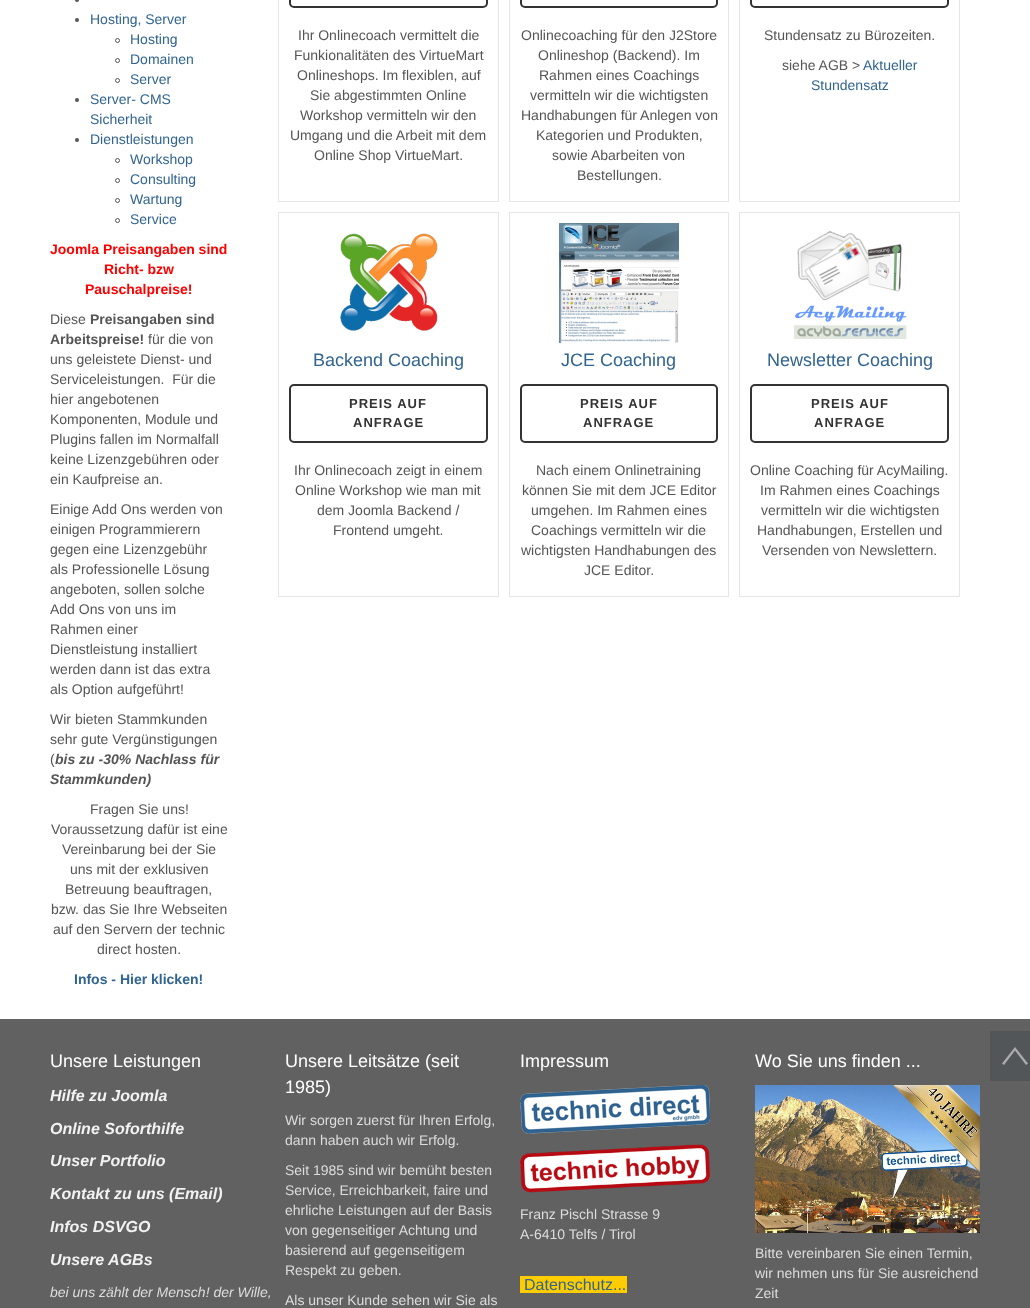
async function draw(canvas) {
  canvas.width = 1030
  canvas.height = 1308
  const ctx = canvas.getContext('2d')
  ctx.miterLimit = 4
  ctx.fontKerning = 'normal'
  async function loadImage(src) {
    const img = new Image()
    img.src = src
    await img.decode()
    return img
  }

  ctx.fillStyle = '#fff'
  ctx.fillRect(0, 0, 1030, 1308)
  ctx.fillStyle = '#555'
  ctx.beginPath()
  ctx.arc(77, 0, 2, 0, 2 * Math.PI)
  ctx.fill()
  ctx.beginPath()
  ctx.arc(77, 20, 2, 0, 2 * Math.PI)
  ctx.fill()
  ctx.font = '14px Liberation Sans'
  ctx.fillStyle = '#316491'
  ctx.fillText('Hosting, Server', 90, 24)
  ctx.beginPath()
  ctx.arc(117.5, 40.5, 2, 0, 2 * Math.PI)
  ctx.strokeStyle = '#555'
  ctx.stroke()
  ctx.fillText('Hosting', 130, 44)
  ctx.beginPath()
  ctx.arc(117.5, 60.5, 2, 0, 2 * Math.PI)
  ctx.stroke()
  ctx.fillText('Domainen', 130, 64)
  ctx.beginPath()
  ctx.arc(117.5, 80.5, 2, 0, 2 * Math.PI)
  ctx.stroke()
  ctx.fillText('Server', 130, 84)
  ctx.fillStyle = '#555'
  ctx.beginPath()
  ctx.arc(77, 100, 2, 0, 2 * Math.PI)
  ctx.fill()
  ctx.fillStyle = '#316491'
  ctx.fillText('Server- CMS', 90, 104)
  ctx.fillText('Sicherheit', 90, 124)
  ctx.fillStyle = '#555'
  ctx.beginPath()
  ctx.arc(77, 140, 2, 0, 2 * Math.PI)
  ctx.fill()
  ctx.fillStyle = '#316491'
  ctx.fillText('Dienstleistungen', 90, 144)
  ctx.beginPath()
  ctx.arc(117.5, 160.5, 2, 0, 2 * Math.PI)
  ctx.stroke()
  ctx.fillText('Workshop', 130, 164)
  ctx.beginPath()
  ctx.arc(117.5, 180.5, 2, 0, 2 * Math.PI)
  ctx.stroke()
  ctx.fillText('Consulting', 130, 184)
  ctx.beginPath()
  ctx.arc(117.5, 200.5, 2, 0, 2 * Math.PI)
  ctx.stroke()
  ctx.fillText('Wartung', 130, 204)
  ctx.beginPath()
  ctx.arc(117.5, 220.5, 2, 0, 2 * Math.PI)
  ctx.stroke()
  ctx.fillText('Service', 130, 224)
  ctx.font = 'bold 14px Liberation Sans'
  ctx.fillStyle = '#f00'
  ctx.fillText('Joomla Preisangaben sind', 50, 254)
  ctx.fillText('Richt- bzw', 104, 274)
  ctx.fillText('Pauschalpreise!', 85, 294)
  ctx.font = '14px Liberation Sans'
  ctx.fillStyle = '#555'
  ctx.fillText('Diese', 50, 324)
  ctx.font = 'bold 14px Liberation Sans'
  ctx.fillText('Preisangaben sind', 90, 324)
  ctx.fillText('Arbeitspreise!', 50, 344)
  ctx.font = '14px Liberation Sans'
  ctx.fillText('für die von', 148, 344)
  ctx.fillText('uns geleistete Dienst- und', 50, 364)
  ctx.fillText('Serviceleistungen.  Für die', 50, 384)
  ctx.fillText('hier angebotenen', 50, 404)
  ctx.fillText('Komponenten, Module und', 50, 424)
  ctx.fillText('Plugins fallen im Normalfall', 50, 444)
  ctx.fillText('keine Lizenzgebühren oder', 50, 464)
  ctx.fillText('ein Kaufpreise an.', 50, 484)
  ctx.fillText('Einige Add Ons werden von', 50, 514)
  ctx.fillText('einigen Programmierern', 50, 534)
  ctx.fillText('gegen eine Lizenzgebühr', 50, 554)
  ctx.fillText('als Professionelle Lösung', 50, 574)
  ctx.fillText('angeboten, sollen solche', 50, 594)
  ctx.fillText('Add Ons von uns im', 50, 614)
  ctx.fillText('Rahmen einer', 50, 634)
  ctx.fillText('Dienstleistung installiert', 50, 654)
  ctx.fillText('werden dann ist das extra', 50, 674)
  ctx.fillText('als Option aufgeführt!', 50, 694)
  ctx.fillText('Wir bieten Stammkunden', 50, 724)
  ctx.fillText('sehr gute Vergünstigungen', 50, 744)
  ctx.fillText('(', 50, 764)
  ctx.font = 'italic bold 14px Liberation Sans'
  ctx.fillText('bis zu -30% Nachlass für', 55, 764)
  ctx.fillText('Stammkunden)', 50, 784)
  ctx.font = '14px Liberation Sans'
  ctx.fillText('Fragen Sie uns!', 90, 814)
  ctx.fillText('Voraussetzung dafür ist eine', 51, 834)
  ctx.fillText('Vereinbarung bei der Sie', 62, 854)
  ctx.fillText('uns mit der exklusiven', 70, 874)
  ctx.fillText('Betreuung beauftragen,', 65, 894)
  ctx.fillText('bzw. das Sie Ihre Webseiten', 51, 914)
  ctx.fillText('auf den Servern der technic', 53, 934)
  ctx.fillText('direct hosten.', 97, 954)
  ctx.font = 'bold 14px Liberation Sans'
  ctx.fillStyle = '#316491'
  ctx.fillText('Infos - Hier klicken!', 74, 984)
  ctx.strokeStyle = '#e6e6e6'
  ctx.strokeRect(278.5, -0.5, 220, 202)
  ctx.beginPath()
  ctx.roundRect(290, -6, 197, 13, 4)
  ctx.strokeStyle = '#333'
  ctx.lineWidth = 2
  ctx.stroke()
  ctx.font = '14px Liberation Sans'
  ctx.fillStyle = '#555'
  ctx.fillText('Ihr Onlinecoach vermittelt die', 298, 40)
  ctx.fillText('Funkionalitäten des VirtueMart', 294, 60)
  ctx.fillText('Onlineshops. Im flexiblen, auf', 297, 80)
  ctx.fillText('Sie abgestimmten Online', 310, 100)
  ctx.fillText('Workshop vermitteln wir den', 300, 120)
  ctx.fillText('Umgang und die Arbeit mit dem', 290, 140)
  ctx.fillText('Online Shop VirtueMart.', 314, 160)
  ctx.strokeStyle = '#e6e6e6'
  ctx.lineWidth = 1
  ctx.strokeRect(509.5, -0.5, 219, 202)
  ctx.beginPath()
  ctx.roundRect(521, -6, 196, 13, 4)
  ctx.strokeStyle = '#333'
  ctx.lineWidth = 2
  ctx.stroke()
  ctx.fillText('Onlinecoaching für den J2Store', 521, 40)
  ctx.fillText('Onlineshop (Backend). Im', 538, 60)
  ctx.fillText('Rahmen eines Coachings', 539, 80)
  ctx.fillText('vermitteln wir die wichtigsten', 530, 100)
  ctx.fillText('Handhabungen für Anlegen von', 521, 120)
  ctx.fillText('Kategorien und Produkten,', 536, 140)
  ctx.fillText('sowie Abarbeiten von', 552, 160)
  ctx.fillText('Bestellungen.', 577, 180)
  ctx.strokeStyle = '#e6e6e6'
  ctx.lineWidth = 1
  ctx.strokeRect(739.5, -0.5, 220, 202)
  ctx.beginPath()
  ctx.roundRect(751, -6, 197, 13, 4)
  ctx.strokeStyle = '#333'
  ctx.lineWidth = 2
  ctx.stroke()
  ctx.fillText('Stundensatz zu Bürozeiten.', 764, 40)
  ctx.fillText('siehe AGB >', 782, 70)
  ctx.fillStyle = '#316491'
  ctx.fillText('Aktueller', 863, 70)
  ctx.fillText('Stundensatz', 811, 90)
  ctx.strokeStyle = '#e6e6e6'
  ctx.lineWidth = 1
  ctx.strokeRect(278.5, 212.5, 220, 384)
  ctx.drawImage(await loadImage('image0.png'), 340, 233, 98, 98)
  ctx.font = '18px Liberation Sans'
  ctx.fillText('Backend Coaching', 313, 366)
  ctx.beginPath()
  ctx.roundRect(290, 385, 197, 57, 4)
  ctx.strokeStyle = '#333'
  ctx.lineWidth = 2
  ctx.stroke()
  ctx.letterSpacing = '1px'
  ctx.font = 'bold 13px Liberation Sans'
  ctx.fillStyle = '#333'
  ctx.fillText('PREIS AUF', 349, 408)
  ctx.fillText('ANFRAGE', 353, 427)
  ctx.letterSpacing = '0px'
  ctx.font = '14px Liberation Sans'
  ctx.fillStyle = '#555'
  ctx.fillText('Ihr Onlinecoach zeigt in einem', 294, 475)
  ctx.fillText('Online Workshop wie man mit', 295, 495)
  ctx.fillText('dem Joomla Backend /', 317, 515)
  ctx.fillText('Frontend umgeht.', 333, 535)
  ctx.strokeStyle = '#e6e6e6'
  ctx.lineWidth = 1
  ctx.strokeRect(509.5, 212.5, 219, 384)
  ctx.drawImage(await loadImage('image1.png'), 559, 223, 120, 120)
  ctx.font = '18px Liberation Sans'
  ctx.fillStyle = '#316491'
  ctx.fillText('JCE Coaching', 561, 366)
  ctx.beginPath()
  ctx.roundRect(521, 385, 196, 57, 4)
  ctx.strokeStyle = '#333'
  ctx.lineWidth = 2
  ctx.stroke()
  ctx.letterSpacing = '1px'
  ctx.font = 'bold 13px Liberation Sans'
  ctx.fillStyle = '#333'
  ctx.fillText('PREIS AUF', 580, 408)
  ctx.fillText('ANFRAGE', 583, 427)
  ctx.letterSpacing = '0px'
  ctx.font = '14px Liberation Sans'
  ctx.fillStyle = '#555'
  ctx.fillText('Nach einem Onlinetraining', 536, 475)
  ctx.fillText('können Sie mit dem JCE Editor', 522, 495)
  ctx.fillText('umgehen. Im Rahmen eines', 531, 515)
  ctx.fillText('Coachings vermitteln wir die', 531, 535)
  ctx.fillText('wichtigsten Handhabungen des', 521, 555)
  ctx.fillText('JCE Editor.', 584, 575)
  ctx.strokeStyle = '#e6e6e6'
  ctx.lineWidth = 1
  ctx.strokeRect(739.5, 212.5, 220, 384)
  ctx.drawImage(await loadImage('image2.png'), 794, 230, 113, 109)
  ctx.font = '18px Liberation Sans'
  ctx.fillStyle = '#316491'
  ctx.fillText('Newsletter Coaching', 767, 366)
  ctx.beginPath()
  ctx.roundRect(751, 385, 197, 57, 4)
  ctx.strokeStyle = '#333'
  ctx.lineWidth = 2
  ctx.stroke()
  ctx.letterSpacing = '1px'
  ctx.font = 'bold 13px Liberation Sans'
  ctx.fillStyle = '#333'
  ctx.fillText('PREIS AUF', 811, 408)
  ctx.fillText('ANFRAGE', 814, 427)
  ctx.letterSpacing = '0px'
  ctx.font = '14px Liberation Sans'
  ctx.fillStyle = '#555'
  ctx.fillText('Online Coaching für AcyMailing.', 750, 475)
  ctx.fillText('Im Rahmen eines Coachings', 760, 495)
  ctx.fillText('vermitteln wir die wichtigsten', 761, 515)
  ctx.fillText('Handhabungen, Erstellen und', 757, 535)
  ctx.fillText('Versenden von Newslettern.', 762, 555)
  ctx.fillStyle = '#616161'
  ctx.fillRect(0, 1019, 1030, 289)
  ctx.font = '18px Liberation Sans'
  ctx.fillStyle = '#fff'
  ctx.fillText('Unsere Leistungen', 50, 1067)
  ctx.font = 'italic bold 16px Liberation Sans'
  ctx.fillStyle = '#f2f2f2'
  ctx.fillText('Hilfe zu Joomla', 50, 1101)
  ctx.fillText('Online Soforthilfe', 50, 1134)
  ctx.fillText('Unser Portfolio', 50, 1166)
  ctx.fillText('Kontakt zu uns (Email)', 50, 1199)
  ctx.fillText('Infos DSVGO', 50, 1232)
  ctx.fillText('Unsere AGBs', 50, 1265)
  ctx.font = 'italic 14px Liberation Sans'
  ctx.fillStyle = '#ddd'
  ctx.fillText('bei uns zählt der Mensch! der Wille,', 50, 1297)
  ctx.font = '18px Liberation Sans'
  ctx.fillStyle = '#fff'
  ctx.fillText('Unsere Leitsätze (seit', 285, 1067)
  ctx.fillText('1985)', 285, 1093)
  ctx.font = '14px Liberation Sans'
  ctx.fillStyle = '#ddd'
  ctx.fillText('Wir sorgen zuerst für Ihren Erfolg,', 285, 1125)
  ctx.fillText('dann haben auch wir Erfolg.', 285, 1145)
  ctx.fillText('Seit 1985 sind wir bemüht besten', 285, 1175)
  ctx.fillText('Service, Erreichbarkeit, faire und', 285, 1195)
  ctx.fillText('ehrliche Leistungen auf der Basis', 285, 1215)
  ctx.fillText('von gegenseitiger Achtung und', 285, 1235)
  ctx.fillText('basierend auf gegenseitigem', 285, 1255)
  ctx.fillText('Respekt zu geben.', 285, 1275)
  ctx.fillText('Als unser Kunde sehen wir Sie als', 285, 1305)
  ctx.font = '18px Liberation Sans'
  ctx.fillStyle = '#fff'
  ctx.fillText('Impressum', 520, 1067)
  ctx.drawImage(await loadImage('image3.png'), 520, 1085, 190, 49)
  ctx.drawImage(await loadImage('image4.png'), 520, 1144, 190, 49)
  ctx.font = '14px Liberation Sans'
  ctx.fillStyle = '#ddd'
  ctx.fillText('Franz Pischl Strasse 9', 520, 1219)
  ctx.fillText('A-6410 Telfs / Tirol', 520, 1239)
  ctx.fillStyle = '#fc0'
  ctx.fillRect(520, 1276, 107, 17)
  ctx.font = '16px Liberation Sans'
  ctx.fillStyle = '#316491'
  ctx.fillText('Datenschutz...', 524, 1290)
  ctx.font = '18px Liberation Sans'
  ctx.fillStyle = '#fff'
  ctx.fillText('Wo Sie uns finden ...', 755, 1067)
  ctx.drawImage(await loadImage('image5.png'), 755, 1085, 225, 148)
  ctx.font = '14px Liberation Sans'
  ctx.fillStyle = '#ddd'
  ctx.fillText('Bitte vereinbaren Sie einen Termin,', 755, 1258)
  ctx.fillText('wir nehmen uns für Sie ausreichend', 755, 1278)
  ctx.fillText('Zeit', 755, 1298)
  ctx.fillStyle = '#525659'
  ctx.fillRect(990, 1031, 40, 50)
  ctx.fillStyle = '#a9abac'
  ctx.beginPath()
  ctx.moveTo(1015, 1047)
  ctx.lineTo(1028, 1063.5)
  ctx.lineTo(1026, 1065)
  ctx.lineTo(1015, 1050.5)
  ctx.lineTo(1004, 1065)
  ctx.lineTo(1002, 1063.5)
  ctx.closePath()
  ctx.fill()
}

draw(document.querySelector('canvas'))
